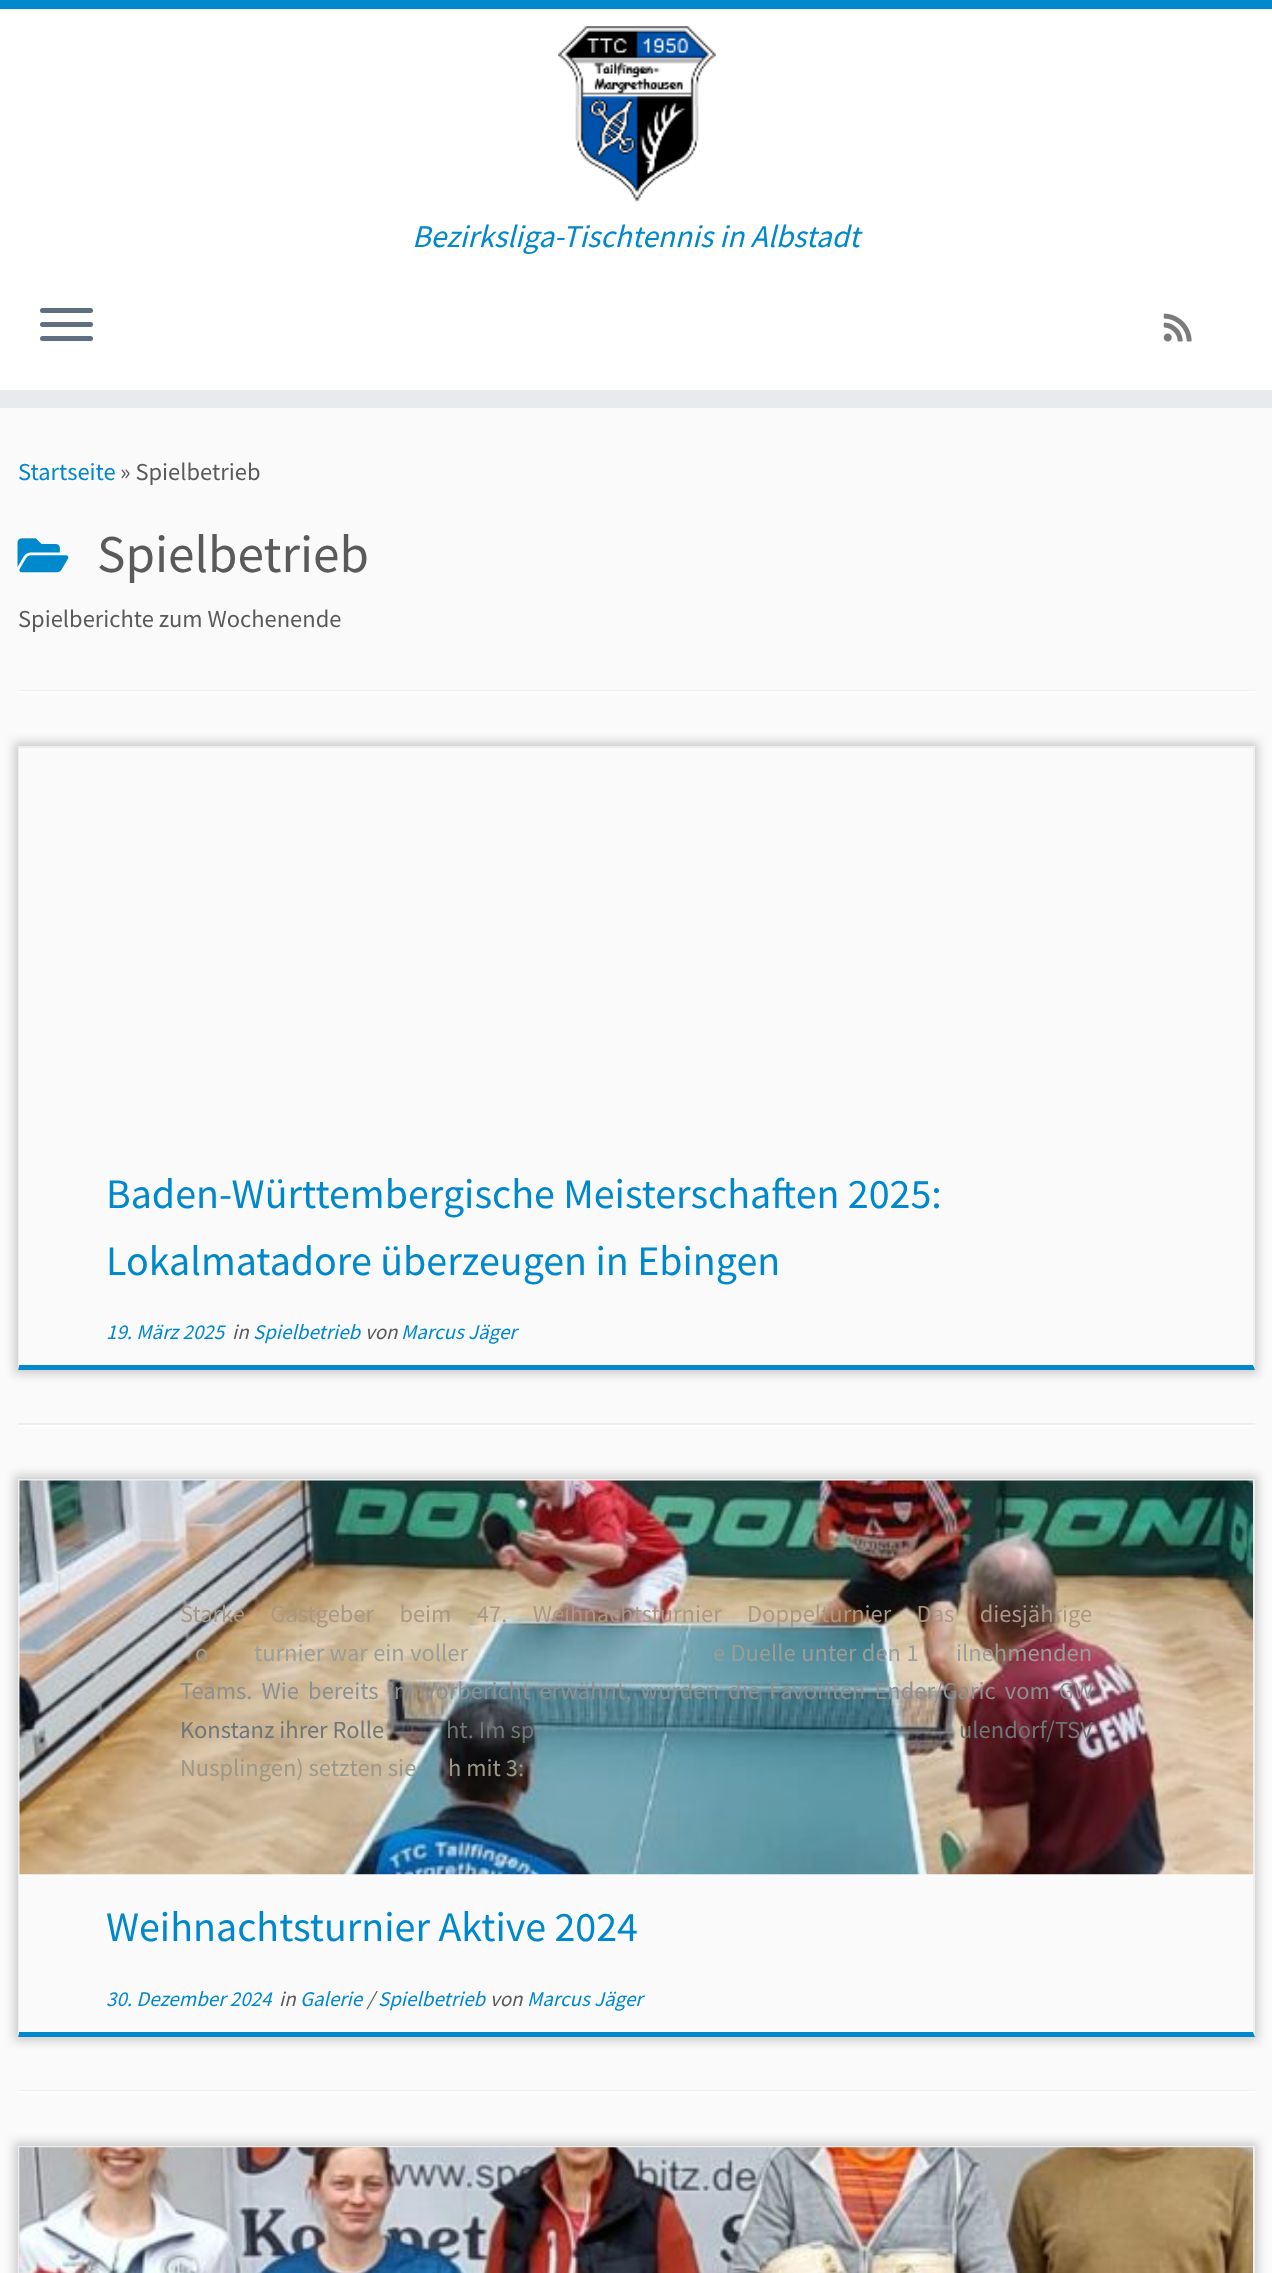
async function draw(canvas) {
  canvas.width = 1272
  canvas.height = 2273
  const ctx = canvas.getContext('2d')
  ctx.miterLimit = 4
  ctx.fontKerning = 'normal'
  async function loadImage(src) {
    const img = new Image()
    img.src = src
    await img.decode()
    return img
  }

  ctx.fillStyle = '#fafafa'
  ctx.fillRect(0, 0, 1272, 2273)
  ctx.fillStyle = '#fff'
  ctx.fillRect(0, 9, 1272, 381)
  ctx.fillStyle = '#08c'
  ctx.fillRect(0, 0, 1272, 9)
  ctx.fillStyle = '#e9eaee'
  ctx.fillRect(0, 390, 1272, 18)
  ctx.drawImage(await loadImage('image0.png'), 558, 26, 158, 176)
  ctx.font = 'italic 31.5px Source Sans Pro'
  ctx.fillStyle = '#08c'
  ctx.fillText('Bezirksliga-Tischtennis in Albstadt', 412, 247)
  ctx.fillStyle = '#5f6f81'
  ctx.beginPath()
  ctx.roundRect(40, 308, 53, 5, 2.5)
  ctx.fill()
  ctx.beginPath()
  ctx.roundRect(40, 322, 53, 5, 2.5)
  ctx.fill()
  ctx.beginPath()
  ctx.roundRect(40, 336, 53, 5, 2.5)
  ctx.fill()
  ctx.drawImage(await loadImage('image1.png'), 1163, 313, 29, 29)
  ctx.font = '24.5px Source Sans Pro'
  ctx.fillStyle = '#08c'
  ctx.fillText('Startseite', 18, 480)
  ctx.fillStyle = '#5a5a5a'
  ctx.fillText('» Spielbetrieb', 120, 480)
  ctx.drawImage(await loadImage('image2.png'), 17, 538, 52, 35)
  ctx.font = '53.25px Source Sans Pro'
  ctx.fillText('Spielbetrieb', 97, 572)
  ctx.font = '24.5px Source Sans Pro'
  ctx.fillText('Spielberichte zum Wochenende', 18, 627)
  ctx.fillStyle = '#eee'
  ctx.fillRect(18, 690, 1237, 1)
  ctx.fillStyle = '#fff'
  ctx.fillRect(18, 691, 1237, 2)
  ctx.save()
  ctx.beginPath()
  ctx.moveTo(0, 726)
  ctx.lineTo(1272, 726)
  ctx.lineTo(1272, 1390)
  ctx.lineTo(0, 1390)
  ctx.closePath()
  ctx.moveTo(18, 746)
  ctx.lineTo(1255, 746)
  ctx.lineTo(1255, 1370)
  ctx.lineTo(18, 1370)
  ctx.closePath()
  ctx.clip('evenodd')
  ctx.fillStyle = '#ccc'
  ctx.filter = 'blur(5px)'
  ctx.beginPath()
  ctx.rect(14, 742, 1244, 632)
  ctx.fill()
  ctx.filter = 'none'
  ctx.restore()
  ctx.fillStyle = '#eee'
  ctx.fillRect(18, 746, 1237, 2)
  ctx.beginPath()
  ctx.moveTo(1255, 746)
  ctx.lineTo(1255, 1370)
  ctx.lineTo(1253, 1365)
  ctx.lineTo(1253, 747)
  ctx.closePath()
  ctx.fill()
  ctx.fillStyle = '#08c'
  ctx.beginPath()
  ctx.moveTo(1255, 1370)
  ctx.lineTo(18, 1370)
  ctx.lineTo(19, 1365)
  ctx.lineTo(1253, 1365)
  ctx.closePath()
  ctx.fill()
  ctx.fillStyle = '#eee'
  ctx.beginPath()
  ctx.moveTo(18, 1370)
  ctx.lineTo(18, 746)
  ctx.lineTo(19, 747)
  ctx.lineTo(19, 1365)
  ctx.closePath()
  ctx.fill()
  ctx.font = '42px Source Sans Pro'
  ctx.fillStyle = '#08c'
  ctx.fillText('Baden-Württembergische Meisterschaften 2025:', 106, 1208)
  ctx.fillText('Lokalmatadore überzeugen in Ebingen', 106, 1275)
  ctx.font = 'italic 21px Source Sans Pro'
  ctx.fillText('19. März 2025', 106, 1339)
  ctx.fillStyle = '#5a5a5a'
  ctx.fillText('in', 232, 1339)
  ctx.fillStyle = '#08c'
  ctx.fillText('Spielbetrieb', 253, 1339)
  ctx.fillStyle = '#5a5a5a'
  ctx.fillText('von', 365, 1339)
  ctx.fillStyle = '#08c'
  ctx.fillText('Marcus Jäger', 401, 1339)
  ctx.fillStyle = '#eee'
  ctx.fillRect(18, 1423, 1237, 2)
  ctx.fillStyle = '#fff'
  ctx.fillRect(18, 1425, 1237, 2)
  ctx.save()
  ctx.beginPath()
  ctx.moveTo(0, 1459)
  ctx.lineTo(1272, 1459)
  ctx.lineTo(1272, 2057)
  ctx.lineTo(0, 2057)
  ctx.closePath()
  ctx.moveTo(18, 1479)
  ctx.lineTo(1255, 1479)
  ctx.lineTo(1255, 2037)
  ctx.lineTo(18, 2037)
  ctx.closePath()
  ctx.clip('evenodd')
  ctx.fillStyle = '#ccc'
  ctx.filter = 'blur(5px)'
  ctx.beginPath()
  ctx.rect(14, 1475, 1244, 566)
  ctx.fill()
  ctx.filter = 'none'
  ctx.restore()
  ctx.fillStyle = '#eee'
  ctx.fillRect(18, 1479, 1237, 2)
  ctx.beginPath()
  ctx.moveTo(1255, 1479)
  ctx.lineTo(1255, 2037)
  ctx.lineTo(1253, 2032)
  ctx.lineTo(1253, 1480)
  ctx.closePath()
  ctx.fill()
  ctx.fillStyle = '#08c'
  ctx.beginPath()
  ctx.moveTo(1255, 2037)
  ctx.lineTo(18, 2037)
  ctx.lineTo(19, 2032)
  ctx.lineTo(1253, 2032)
  ctx.closePath()
  ctx.fill()
  ctx.fillStyle = '#eee'
  ctx.beginPath()
  ctx.moveTo(18, 2037)
  ctx.lineTo(18, 1479)
  ctx.lineTo(19, 1480)
  ctx.lineTo(19, 2032)
  ctx.closePath()
  ctx.fill()
  ctx.drawImage(await loadImage('image3.png'), 19, 1480, 1234, 395)
  ctx.wordSpacing = '20.5px'
  ctx.font = '24.5px Source Sans Pro'
  ctx.fillStyle = '#ab9783'
  ctx.fillText('Starke Gastgeber beim 47. Weihnachtsturnier Doppelturnier Das diesjährige', 180, 1622)
  ctx.wordSpacing = '0.5px'
  ctx.fillStyle = '#9a9d98'
  ctx.fillText('o', 195, 1661)
  ctx.fillText('turnier war ein voller', 254, 1661)
  ctx.fillText('e Duelle unter den 1', 713, 1661)
  ctx.fillText('ilnehmenden', 956, 1661)
  ctx.wordSpacing = '4.25px'
  ctx.fillStyle = '#8c9090'
  ctx.fillText('Teams. Wie bereits im Vorbericht erwähnt, wurden die Favoriten Ender/Garic vom GW', 180, 1699)
  ctx.wordSpacing = '0px'
  ctx.fillStyle = '#6f7677'
  ctx.fillText('Konstanz ihrer Rolle', 180, 1738)
  ctx.fillText('ht. Im sp', 446, 1738)
  ctx.fillText('ulendorf/TSV', 959, 1738)
  ctx.fillStyle = '#9d9786'
  ctx.fillText('Nusplingen) setzten sie', 180, 1776)
  ctx.fillText('h mit 3:', 448, 1776)
  ctx.font = '42px Source Sans Pro'
  ctx.fillStyle = '#08c'
  ctx.fillText('Weihnachtsturnier Aktive 2024', 106, 1941)
  ctx.font = 'italic 21px Source Sans Pro'
  ctx.fillText('30. Dezember 2024', 106, 2006)
  ctx.fillStyle = '#5a5a5a'
  ctx.fillText('in', 279, 2006)
  ctx.fillStyle = '#08c'
  ctx.fillText('Galerie', 300, 2006)
  ctx.fillStyle = '#5a5a5a'
  ctx.fillText('/', 367, 2006)
  ctx.fillStyle = '#08c'
  ctx.fillText('Spielbetrieb', 378, 2006)
  ctx.fillStyle = '#5a5a5a'
  ctx.fillText('von', 490, 2006)
  ctx.fillStyle = '#08c'
  ctx.fillText('Marcus Jäger', 527, 2006)
  ctx.fillStyle = '#eee'
  ctx.fillRect(18, 2090, 1237, 1)
  ctx.fillStyle = '#fff'
  ctx.fillRect(18, 2091, 1237, 2)
  ctx.fillStyle = '#ccc'
  ctx.filter = 'blur(5px)'
  ctx.beginPath()
  ctx.rect(14, 2142, 1244, 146)
  ctx.fill()
  ctx.filter = 'none'
  ctx.fillStyle = '#eee'
  ctx.fillRect(18, 2146, 1237, 2)
  ctx.beginPath()
  ctx.moveTo(1255, 2146)
  ctx.lineTo(1255, 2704)
  ctx.lineTo(1253, 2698)
  ctx.lineTo(1253, 2147)
  ctx.closePath()
  ctx.fill()
  ctx.beginPath()
  ctx.moveTo(18, 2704)
  ctx.lineTo(18, 2146)
  ctx.lineTo(19, 2147)
  ctx.lineTo(19, 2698)
  ctx.closePath()
  ctx.fill()
  ctx.drawImage(await loadImage('image4.png'), 19, 2147, 1234, 126)
}

draw(document.querySelector('canvas'))
